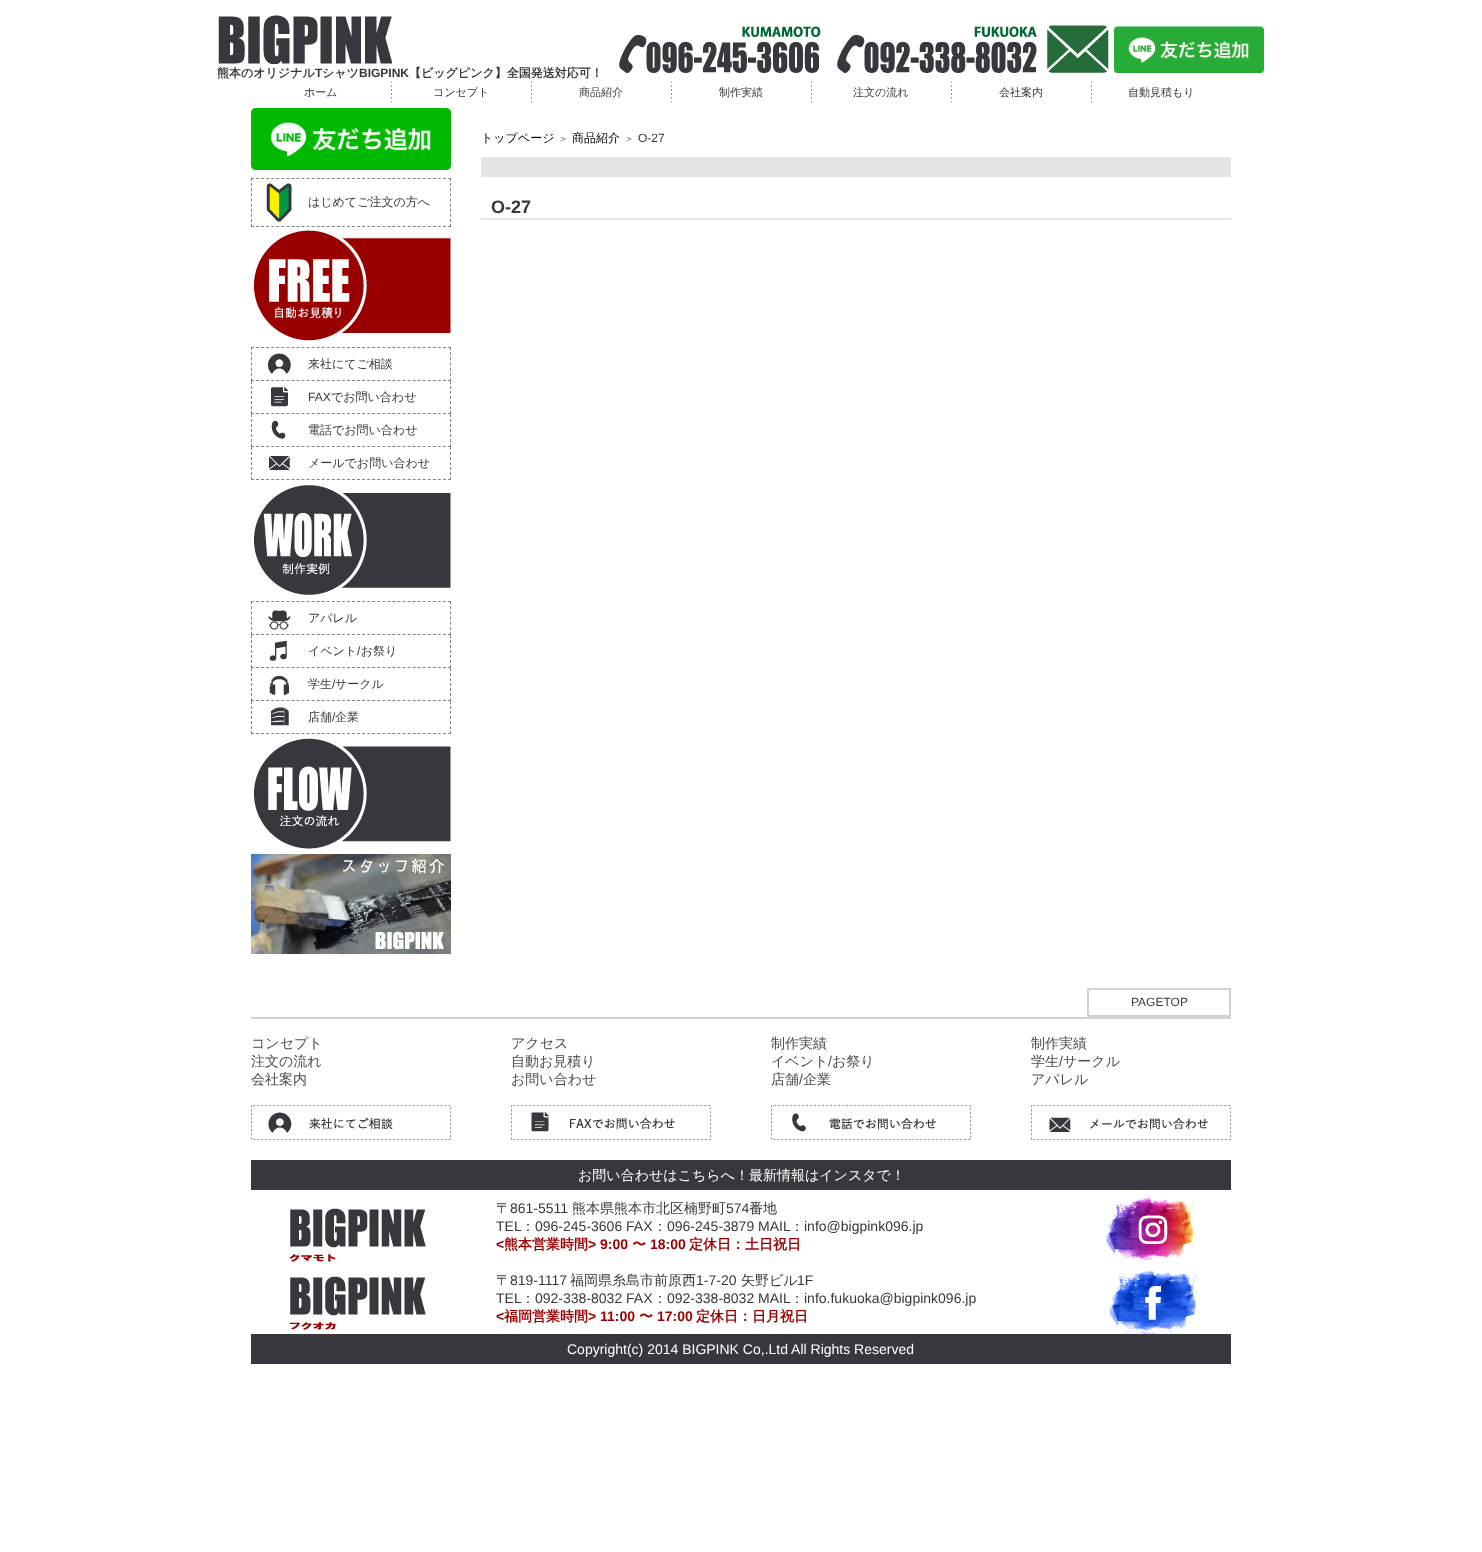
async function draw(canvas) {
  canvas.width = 1482
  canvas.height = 1552
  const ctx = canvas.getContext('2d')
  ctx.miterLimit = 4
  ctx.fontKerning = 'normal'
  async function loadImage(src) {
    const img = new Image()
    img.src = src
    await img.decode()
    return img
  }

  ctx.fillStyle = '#fff'
  ctx.fillRect(0, 0, 1482, 1552)
  ctx.drawImage(await loadImage('image0.png'), 218, 15, 174, 49)
  ctx.font = 'bold 12px WenQuanYi Zen Hei'
  ctx.fillStyle = '#38373e'
  ctx.fillText('熊本のオリジナル', 217, 77)
  ctx.font = 'bold 12px Liberation Sans'
  ctx.fillText('T', 315, 77)
  ctx.font = 'bold 12px WenQuanYi Zen Hei'
  ctx.fillText('シャツ', 322, 77)
  ctx.font = 'bold 12px Liberation Sans'
  ctx.fillText('BIGPINK', 359, 77)
  ctx.font = 'bold 12px WenQuanYi Zen Hei'
  ctx.fillText('【ビッグピンク】全国発送対応可！', 409, 77)
  ctx.drawImage(await loadImage('image1.png'), 619, 26, 202, 47)
  ctx.drawImage(await loadImage('image2.png'), 837, 26, 200, 47)
  ctx.drawImage(await loadImage('image3.png'), 1047, 25, 62, 48)
  ctx.drawImage(await loadImage('image4.png'), 1114, 26, 150, 47)
  ctx.font = '500 11px WenQuanYi Zen Hei'
  ctx.fillText('ホーム', 304, 96)
  ctx.drawImage(await loadImage('image5.png'), 391, 82, 1, 20)
  ctx.fillText('コンセプト', 433, 96)
  ctx.drawImage(await loadImage('image5.png'), 531, 82, 1, 20)
  ctx.fillText('商品紹介', 579, 96)
  ctx.drawImage(await loadImage('image5.png'), 671, 82, 1, 20)
  ctx.fillText('制作実績', 719, 96)
  ctx.drawImage(await loadImage('image5.png'), 811, 82, 1, 20)
  ctx.fillText('注文の流れ', 853, 96)
  ctx.drawImage(await loadImage('image5.png'), 951, 82, 1, 20)
  ctx.fillText('会社案内', 999, 96)
  ctx.drawImage(await loadImage('image5.png'), 1091, 82, 1, 20)
  ctx.fillText('自動見積もり', 1128, 96)
  ctx.font = '500 12px WenQuanYi Zen Hei'
  ctx.fillStyle = '#000'
  ctx.fillText('トップページ', 481, 142)
  ctx.font = '500 10px WenQuanYi Zen Hei'
  ctx.fillStyle = '#38373e'
  ctx.fillText('＞', 558, 142)
  ctx.font = '500 12px WenQuanYi Zen Hei'
  ctx.fillStyle = '#000'
  ctx.fillText('商品紹介', 572, 142)
  ctx.font = '500 10px WenQuanYi Zen Hei'
  ctx.fillStyle = '#38373e'
  ctx.fillText('＞', 624, 142)
  ctx.font = '12px Liberation Sans'
  ctx.fillText('O-27', 638, 142)
  ctx.fillStyle = '#e5e5e5'
  ctx.fillRect(481, 157, 750, 20)
  ctx.fillRect(481, 218, 750, 2)
  ctx.font = 'bold 18px Liberation Sans'
  ctx.fillStyle = '#38373e'
  ctx.fillText('O-27', 491, 213)
  ctx.drawImage(await loadImage('image6.png'), 251, 108, 200, 62)
  ctx.beginPath()
  ctx.moveTo(251, 178.5)
  ctx.lineTo(451, 178.5)
  ctx.strokeStyle = '#838286'
  ctx.setLineDash([3, 2.05])
  ctx.stroke()
  ctx.beginPath()
  ctx.moveTo(450.5, 178)
  ctx.lineTo(450.5, 227)
  ctx.setLineDash([3, 2.11])
  ctx.stroke()
  ctx.beginPath()
  ctx.moveTo(251, 226.5)
  ctx.lineTo(451, 226.5)
  ctx.setLineDash([3, 2.05])
  ctx.stroke()
  ctx.beginPath()
  ctx.moveTo(251.5, 178)
  ctx.lineTo(251.5, 227)
  ctx.setLineDash([3, 2.11])
  ctx.stroke()
  ctx.drawImage(await loadImage('image7.png'), 266, 183, 26, 39)
  ctx.font = '500 12px WenQuanYi Zen Hei'
  ctx.fillText('はじめてご注文の方へ', 308, 206)
  ctx.drawImage(await loadImage('image8.png'), 254, 230, 197, 111)
  ctx.beginPath()
  ctx.moveTo(251, 347.5)
  ctx.lineTo(451, 347.5)
  ctx.setLineDash([3, 2.05])
  ctx.stroke()
  ctx.beginPath()
  ctx.moveTo(450.5, 347)
  ctx.lineTo(450.5, 381)
  ctx.setLineDash([3, 2.17])
  ctx.stroke()
  ctx.beginPath()
  ctx.moveTo(251, 380.5)
  ctx.lineTo(451, 380.5)
  ctx.setLineDash([3, 2.05])
  ctx.stroke()
  ctx.beginPath()
  ctx.moveTo(251.5, 347)
  ctx.lineTo(251.5, 381)
  ctx.setLineDash([3, 2.17])
  ctx.stroke()
  ctx.drawImage(await loadImage('image9.png'), 268, 353, 23, 21)
  ctx.fillText('来社にてご相談', 308, 368)
  ctx.beginPath()
  ctx.moveTo(450.5, 381)
  ctx.lineTo(450.5, 414)
  ctx.setLineDash([3, 2])
  ctx.stroke()
  ctx.beginPath()
  ctx.moveTo(251, 413.5)
  ctx.lineTo(451, 413.5)
  ctx.setLineDash([3, 2.05])
  ctx.stroke()
  ctx.beginPath()
  ctx.moveTo(251.5, 381)
  ctx.lineTo(251.5, 414)
  ctx.setLineDash([3, 2])
  ctx.stroke()
  ctx.drawImage(await loadImage('image10.png'), 271, 387, 18, 20)
  ctx.font = '12px Liberation Sans'
  ctx.fillText('FAX', 308, 401)
  ctx.font = '500 12px WenQuanYi Zen Hei'
  ctx.fillText('でお問い合わせ', 331, 401)
  ctx.beginPath()
  ctx.moveTo(450.5, 414)
  ctx.lineTo(450.5, 447)
  ctx.stroke()
  ctx.beginPath()
  ctx.moveTo(251, 446.5)
  ctx.lineTo(451, 446.5)
  ctx.setLineDash([3, 2.05])
  ctx.stroke()
  ctx.beginPath()
  ctx.moveTo(251.5, 414)
  ctx.lineTo(251.5, 447)
  ctx.setLineDash([3, 2])
  ctx.stroke()
  ctx.drawImage(await loadImage('image11.png'), 271, 420, 15, 19)
  ctx.fillText('電話でお問い合わせ', 308, 434)
  ctx.beginPath()
  ctx.moveTo(450.5, 447)
  ctx.lineTo(450.5, 480)
  ctx.stroke()
  ctx.beginPath()
  ctx.moveTo(251, 479.5)
  ctx.lineTo(451, 479.5)
  ctx.setLineDash([3, 2.05])
  ctx.stroke()
  ctx.beginPath()
  ctx.moveTo(251.5, 447)
  ctx.lineTo(251.5, 480)
  ctx.setLineDash([3, 2])
  ctx.stroke()
  ctx.drawImage(await loadImage('image12.png'), 269, 456, 21, 14)
  ctx.fillText('メールでお問い合わせ', 308, 467)
  ctx.drawImage(await loadImage('image13.png'), 254, 485, 197, 110)
  ctx.beginPath()
  ctx.moveTo(251, 601.5)
  ctx.lineTo(451, 601.5)
  ctx.setLineDash([3, 2.05])
  ctx.stroke()
  ctx.beginPath()
  ctx.moveTo(450.5, 601)
  ctx.lineTo(450.5, 635)
  ctx.setLineDash([3, 2.17])
  ctx.stroke()
  ctx.beginPath()
  ctx.moveTo(251, 634.5)
  ctx.lineTo(451, 634.5)
  ctx.setLineDash([3, 2.05])
  ctx.stroke()
  ctx.beginPath()
  ctx.moveTo(251.5, 601)
  ctx.lineTo(251.5, 635)
  ctx.setLineDash([3, 2.17])
  ctx.stroke()
  ctx.drawImage(await loadImage('image14.png'), 268, 610, 23, 20)
  ctx.fillText('アパレル', 308, 622)
  ctx.beginPath()
  ctx.moveTo(450.5, 635)
  ctx.lineTo(450.5, 668)
  ctx.setLineDash([3, 2])
  ctx.stroke()
  ctx.beginPath()
  ctx.moveTo(251, 667.5)
  ctx.lineTo(451, 667.5)
  ctx.setLineDash([3, 2.05])
  ctx.stroke()
  ctx.beginPath()
  ctx.moveTo(251.5, 635)
  ctx.lineTo(251.5, 668)
  ctx.setLineDash([3, 2])
  ctx.stroke()
  ctx.drawImage(await loadImage('image15.png'), 269, 641, 18, 20)
  ctx.fillText('イベント お祭り', 308, 655)
  ctx.font = '12px Liberation Sans'
  ctx.fillText('/', 357, 655)
  ctx.beginPath()
  ctx.moveTo(450.5, 668)
  ctx.lineTo(450.5, 701)
  ctx.stroke()
  ctx.beginPath()
  ctx.moveTo(251, 700.5)
  ctx.lineTo(451, 700.5)
  ctx.setLineDash([3, 2.05])
  ctx.stroke()
  ctx.beginPath()
  ctx.moveTo(251.5, 668)
  ctx.lineTo(251.5, 701)
  ctx.setLineDash([3, 2])
  ctx.stroke()
  ctx.drawImage(await loadImage('image16.png'), 269, 676, 20, 19)
  ctx.font = '500 12px WenQuanYi Zen Hei'
  ctx.fillText('学生', 308, 688)
  ctx.font = '12px Liberation Sans'
  ctx.fillText('/', 332, 688)
  ctx.font = '500 12px WenQuanYi Zen Hei'
  ctx.fillText('サークル', 335, 688)
  ctx.beginPath()
  ctx.moveTo(450.5, 701)
  ctx.lineTo(450.5, 734)
  ctx.stroke()
  ctx.beginPath()
  ctx.moveTo(251, 733.5)
  ctx.lineTo(451, 733.5)
  ctx.setLineDash([3, 2.05])
  ctx.stroke()
  ctx.beginPath()
  ctx.moveTo(251.5, 701)
  ctx.lineTo(251.5, 734)
  ctx.setLineDash([3, 2])
  ctx.stroke()
  ctx.drawImage(await loadImage('image17.png'), 270, 707, 19, 19)
  ctx.fillText('店舗', 308, 721)
  ctx.font = '12px Liberation Sans'
  ctx.fillText('/', 332, 721)
  ctx.font = '500 12px WenQuanYi Zen Hei'
  ctx.fillText('企業', 335, 721)
  ctx.drawImage(await loadImage('image18.png'), 254, 738, 197, 111)
  ctx.drawImage(await loadImage('image19.png'), 251, 854, 200, 100)
  ctx.fillStyle = '#d0d2d3'
  ctx.fillRect(251, 1017, 980, 2)
  ctx.strokeStyle = '#d0d2d3'
  ctx.lineWidth = 2
  ctx.setLineDash([])
  ctx.strokeRect(1088, 989, 142, 27)
  ctx.font = '12px Liberation Sans'
  ctx.fillStyle = '#38373e'
  ctx.fillText('PAGETOP', 1131, 1006)
  ctx.font = '500 14px WenQuanYi Zen Hei'
  ctx.fillStyle = '#4c4b4b'
  ctx.fillText('コンセプト', 251, 1048)
  ctx.fillText('注文の流れ', 251, 1066)
  ctx.fillText('会社案内', 251, 1084)
  ctx.fillText('アクセス', 511, 1048)
  ctx.fillText('自動お見積り', 511, 1066)
  ctx.fillText('お問い合わせ', 511, 1084)
  ctx.fillText('制作実績', 771, 1048)
  ctx.fillText('イベント', 771, 1066)
  ctx.font = '14px Liberation Sans'
  ctx.fillText('/', 828, 1066)
  ctx.font = '500 14px WenQuanYi Zen Hei'
  ctx.fillText('お祭り', 832, 1066)
  ctx.fillText('店舗', 771, 1084)
  ctx.font = '14px Liberation Sans'
  ctx.fillText('/', 799, 1084)
  ctx.font = '500 14px WenQuanYi Zen Hei'
  ctx.fillText('企業', 803, 1084)
  ctx.fillText('制作実績', 1031, 1048)
  ctx.fillText('学生', 1031, 1066)
  ctx.font = '14px Liberation Sans'
  ctx.fillText('/', 1059, 1066)
  ctx.font = '500 14px WenQuanYi Zen Hei'
  ctx.fillText('サークル', 1063, 1066)
  ctx.fillText('アパレル', 1031, 1084)
  ctx.drawImage(await loadImage('image20.png'), 251, 1105, 200, 35)
  ctx.drawImage(await loadImage('image21.png'), 511, 1105, 200, 35)
  ctx.drawImage(await loadImage('image22.png'), 771, 1105, 200, 35)
  ctx.drawImage(await loadImage('image23.png'), 1031, 1105, 200, 35)
  ctx.fillStyle = '#38373e'
  ctx.fillRect(251, 1160, 980, 30)
  ctx.fillStyle = '#fff'
  ctx.fillText('お問い合わせはこちらへ！最新情報はインスタで！', 578, 1180)
  ctx.drawImage(await loadImage('image24.png'), 289, 1208, 137, 54)
  ctx.fillStyle = '#38373e'
  ctx.fillText('〒', 496, 1213)
  ctx.font = '14px Liberation Sans'
  ctx.fillText('861-5511', 510, 1213)
  ctx.font = '500 14px WenQuanYi Zen Hei'
  ctx.fillText('熊本県熊本市北区楠野町', 572, 1213)
  ctx.font = '14px Liberation Sans'
  ctx.fillText('574', 726, 1213)
  ctx.font = '500 14px WenQuanYi Zen Hei'
  ctx.fillText('番地', 749, 1213)
  ctx.font = '14px Liberation Sans'
  ctx.fillText('TEL', 496, 1231)
  ctx.font = '500 14px WenQuanYi Zen Hei'
  ctx.fillText('：', 521, 1231)
  ctx.font = '14px Liberation Sans'
  ctx.fillText('096-245-3606 FAX', 535, 1231)
  ctx.font = '500 14px WenQuanYi Zen Hei'
  ctx.fillText('：', 653, 1231)
  ctx.font = '14px Liberation Sans'
  ctx.fillText('096-245-3879 MAIL', 667, 1231)
  ctx.font = '500 14px WenQuanYi Zen Hei'
  ctx.fillText('：', 790, 1231)
  ctx.font = '14px Liberation Sans'
  ctx.fillText('info@bigpink096.jp', 804, 1231)
  ctx.font = 'bold 14px Liberation Sans'
  ctx.fillStyle = '#900'
  ctx.fillText('<', 496, 1249)
  ctx.font = 'bold 14px WenQuanYi Zen Hei'
  ctx.fillText('熊本営業時間', 504, 1249)
  ctx.font = 'bold 14px Liberation Sans'
  ctx.fillText('> 9:00', 588, 1249)
  ctx.font = 'bold 14px WenQuanYi Zen Hei'
  ctx.fillText('〜', 632, 1249)
  ctx.font = 'bold 14px Liberation Sans'
  ctx.fillText('18:00', 650, 1249)
  ctx.font = 'bold 14px WenQuanYi Zen Hei'
  ctx.fillText('定休日：土日祝日', 689, 1249)
  ctx.drawImage(await loadImage('image25.png'), 1105, 1196, 90, 65)
  ctx.drawImage(await loadImage('image26.png'), 289, 1276, 137, 54)
  ctx.font = '500 14px WenQuanYi Zen Hei'
  ctx.fillStyle = '#38373e'
  ctx.fillText('〒', 496, 1285)
  ctx.font = '14px Liberation Sans'
  ctx.fillText('819-1117', 510, 1285)
  ctx.font = '500 14px WenQuanYi Zen Hei'
  ctx.fillText('福岡県糸島市前原西', 570, 1285)
  ctx.font = '14px Liberation Sans'
  ctx.fillText('1-7-20', 696, 1285)
  ctx.font = '500 14px WenQuanYi Zen Hei'
  ctx.fillText('矢野ビル', 741, 1285)
  ctx.font = '14px Liberation Sans'
  ctx.fillText('1F', 797, 1285)
  ctx.fillText('TEL', 496, 1303)
  ctx.font = '500 14px WenQuanYi Zen Hei'
  ctx.fillText('：', 521, 1303)
  ctx.font = '14px Liberation Sans'
  ctx.fillText('092-338-8032 FAX', 535, 1303)
  ctx.font = '500 14px WenQuanYi Zen Hei'
  ctx.fillText('：', 653, 1303)
  ctx.font = '14px Liberation Sans'
  ctx.fillText('092-338-8032 MAIL', 667, 1303)
  ctx.font = '500 14px WenQuanYi Zen Hei'
  ctx.fillText('：', 790, 1303)
  ctx.font = '14px Liberation Sans'
  ctx.fillText('info.fukuoka@bigpink096.jp', 804, 1303)
  ctx.font = 'bold 14px Liberation Sans'
  ctx.fillStyle = '#900'
  ctx.fillText('<', 496, 1321)
  ctx.font = 'bold 14px WenQuanYi Zen Hei'
  ctx.fillText('福岡営業時間', 504, 1321)
  ctx.font = 'bold 14px Liberation Sans'
  ctx.fillText('> 11:00', 588, 1321)
  ctx.font = 'bold 14px WenQuanYi Zen Hei'
  ctx.fillText('〜', 639, 1321)
  ctx.font = 'bold 14px Liberation Sans'
  ctx.fillText('17:00', 657, 1321)
  ctx.font = 'bold 14px WenQuanYi Zen Hei'
  ctx.fillText('定休日：日月祝日', 696, 1321)
  ctx.drawImage(await loadImage('image27.png'), 1109, 1270, 89, 64)
  ctx.fillStyle = '#38373e'
  ctx.fillRect(251, 1334, 980, 30)
  ctx.font = '14px Liberation Sans'
  ctx.fillStyle = '#fff'
  ctx.fillText('Copyright(c) 2014 BIGPINK Co,.Ltd All Rights Reserved', 567, 1354)
}

draw(document.querySelector('canvas'))
